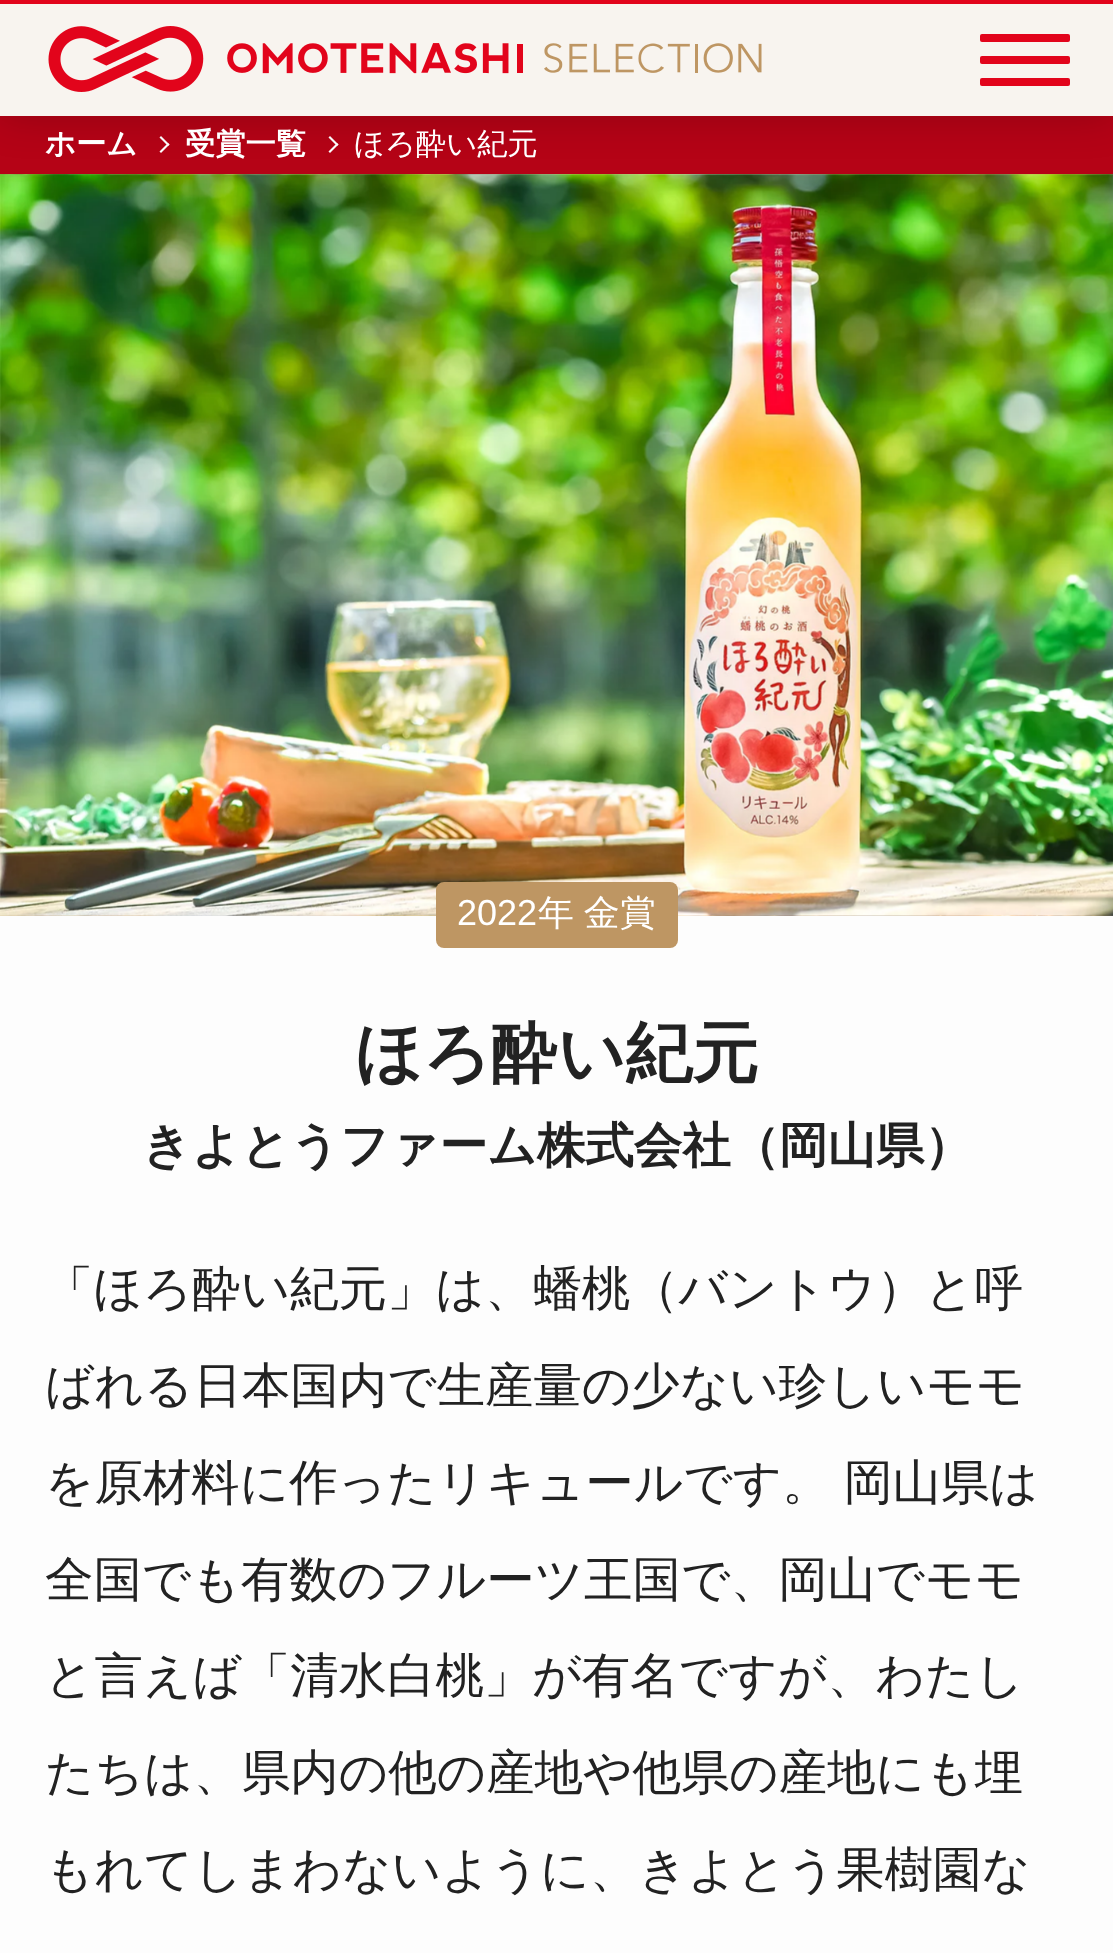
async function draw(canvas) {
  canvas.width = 1113
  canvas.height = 1953
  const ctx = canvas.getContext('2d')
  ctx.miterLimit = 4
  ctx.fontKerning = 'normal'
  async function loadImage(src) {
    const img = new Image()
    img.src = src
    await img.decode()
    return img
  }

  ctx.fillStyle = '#fdfdfd'
  ctx.fillRect(0, 0, 1113, 1953)
  ctx.fillStyle = '#b50316'
  ctx.fillRect(0, 116, 1113, 58)
  ctx.fillStyle = '#fff'
  ctx.beginPath()
  ctx.moveTo(161, 136)
  ctx.lineTo(169.5, 144.5)
  ctx.lineTo(168, 146)
  ctx.lineTo(159.5, 137.5)
  ctx.closePath()
  ctx.fill()
  ctx.beginPath()
  ctx.moveTo(168, 143)
  ctx.lineTo(169.5, 144.5)
  ctx.lineTo(161, 153)
  ctx.lineTo(159.5, 151.5)
  ctx.closePath()
  ctx.fill()
  ctx.beginPath()
  ctx.moveTo(330, 136)
  ctx.lineTo(338.5, 144.5)
  ctx.lineTo(337, 146)
  ctx.lineTo(328.5, 137.5)
  ctx.closePath()
  ctx.fill()
  ctx.beginPath()
  ctx.moveTo(337, 143)
  ctx.lineTo(338.5, 144.5)
  ctx.lineTo(330, 153)
  ctx.lineTo(328.5, 151.5)
  ctx.closePath()
  ctx.fill()
  ctx.drawImage(await loadImage('image1.png'), 0, 174, 1113, 742)
  ctx.drawImage(await loadImage('image2.png'), 0, 174, 1113, 742)
  ctx.fillStyle = '#00000033'
  ctx.filter = 'blur(21px)'
  ctx.beginPath()
  ctx.rect(0, 0, 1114, 116)
  ctx.fill()
  ctx.filter = 'none'
  ctx.fillStyle = '#f8f4ef'
  ctx.fillRect(0, 4, 1113, 112)
  ctx.fillStyle = '#e2041b'
  ctx.fillRect(0, 0, 1113, 4)
  ctx.drawImage(await loadImage('image0.png'), 48, 26, 714, 66)
  ctx.beginPath()
  ctx.roundRect(980, 56, 90, 8, 2)
  ctx.fill()
  ctx.beginPath()
  ctx.roundRect(980, 34, 90, 8, 2)
  ctx.fill()
  ctx.beginPath()
  ctx.roundRect(980, 78, 90, 8, 2)
  ctx.fill()
  ctx.font = 'bold 30.25px WenQuanYi Zen Hei'
  ctx.fillStyle = '#fff'
  ctx.fillText('ホーム', 45, 154)
  ctx.fillText('受賞一覧', 185, 154)
  ctx.font = '500 30.25px WenQuanYi Zen Hei'
  ctx.fillText('ほろ酔い紀元', 354, 154)
  ctx.fillStyle = '#be9663'
  ctx.beginPath()
  ctx.roundRect(436, 882, 242, 66, 8)
  ctx.fill()
  ctx.font = '36px Liberation Sans'
  ctx.fillStyle = '#fff'
  ctx.fillText('2022', 457, 925)
  ctx.wordSpacing = '-1px'
  ctx.font = '500 36px WenQuanYi Zen Hei'
  ctx.fillText('年 金賞', 538, 925)
  ctx.wordSpacing = '0px'
  ctx.font = 'bold 66.5px WenQuanYi Zen Hei'
  ctx.fillStyle = '#222'
  ctx.fillText('ほろ酔い紀元', 355, 1076)
  ctx.font = 'bold 48.4px WenQuanYi Zen Hei'
  ctx.fillText('きよとうファーム株式会社（岡山県）', 142, 1162)
  ctx.font = '500 48.4px WenQuanYi Zen Hei'
  ctx.fillText('「ほろ酔い紀元」は、蟠桃（バントウ）と呼', 45, 1305)
  ctx.fillText('ばれる日本国内で生産量の少ない珍しいモモ', 45, 1402)
  ctx.wordSpacing = '-1px'
  ctx.fillText('を原材料に作ったリキュールです。 岡山県は', 45, 1499)
  ctx.wordSpacing = '0px'
  ctx.fillText('全国でも有数のフルーツ王国で、岡山でモモ', 45, 1596)
  ctx.fillText('と言えば「清水白桃」が有名ですが、わたし', 45, 1692)
  ctx.fillText('たちは、県内の他の産地や他県の産地にも埋', 45, 1789)
  ctx.fillText('もれてしまわないように、きよとう果樹園な', 45, 1886)
}

draw(document.querySelector('canvas'))
